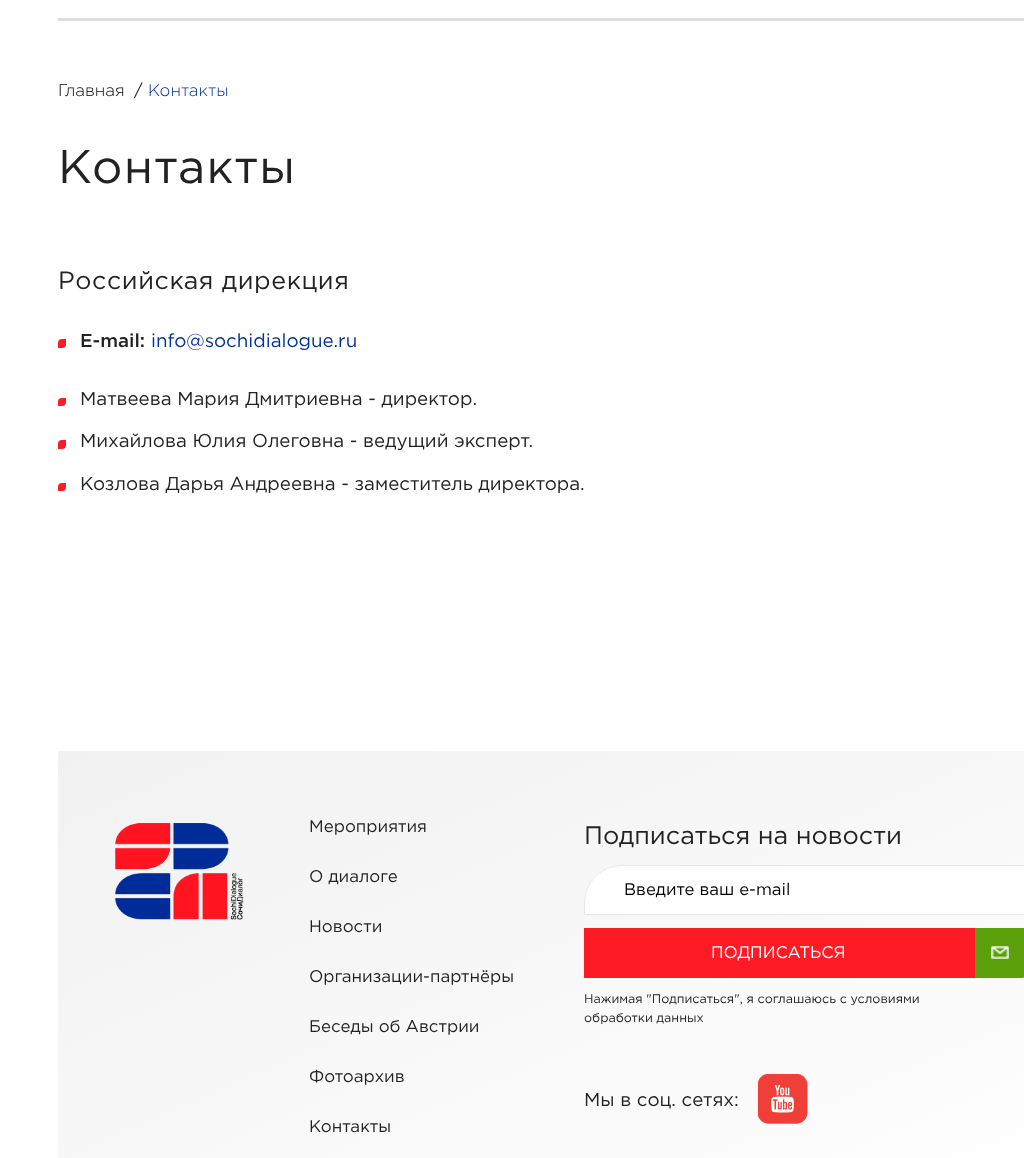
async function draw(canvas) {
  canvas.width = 1024
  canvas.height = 1158
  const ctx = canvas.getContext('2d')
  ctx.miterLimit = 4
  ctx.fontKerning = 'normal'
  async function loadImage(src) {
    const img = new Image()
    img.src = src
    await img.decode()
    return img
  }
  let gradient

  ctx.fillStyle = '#fff'
  ctx.fillRect(0, 0, 1024, 1158)
  ctx.font = '300 16.9px Gotham'
  ctx.fillStyle = '#000'
  ctx.fillText('Главная', 58, 96)
  ctx.font = '16.9px Gotham'
  ctx.fillStyle = '#222'
  ctx.fillText('/', 134, 96)
  ctx.font = '300 16.9px Gotham'
  ctx.fillStyle = '#003098'
  ctx.fillText('Контакты', 148, 96)
  ctx.letterSpacing = '1.25px'
  ctx.font = '47px Gotham'
  ctx.fillStyle = '#222'
  ctx.fillText('Контакты', 58, 183)
  ctx.fillStyle = '#ddd'
  ctx.fillRect(58, 18, 966, 3)
  ctx.letterSpacing = '0.6px'
  ctx.font = '25px Gotham'
  ctx.fillStyle = '#222'
  ctx.fillText('Российская дирекция', 58, 289)
  ctx.fillStyle = '#ff1b25'
  ctx.beginPath()
  ctx.roundRect(58, 339, 8, 9, [4, 0, 4, 0])
  ctx.fill()
  ctx.letterSpacing = '0px'
  ctx.font = '500 18.75px Gotham'
  ctx.fillStyle = '#222'
  ctx.fillText('E-mail:', 80, 347)
  ctx.font = '18.75px Gotham'
  ctx.fillStyle = '#003098'
  ctx.fillText('info@sochidialogue.ru', 151, 347)
  ctx.fillStyle = '#ff1b25'
  ctx.beginPath()
  ctx.roundRect(58, 398, 8, 8, [4, 0, 4, 0])
  ctx.fill()
  ctx.fillStyle = '#222'
  ctx.fillText('Матвеева Мария Дмитриевна - директор.', 80, 405)
  ctx.fillStyle = '#ff1b25'
  ctx.beginPath()
  ctx.roundRect(58, 440, 8, 9, [4, 0, 4, 0])
  ctx.fill()
  ctx.fillStyle = '#222'
  ctx.fillText('Михайлова Юлия Олеговна - ведущий эксперт.', 80, 447)
  ctx.fillStyle = '#ff1b25'
  ctx.beginPath()
  ctx.roundRect(58, 483, 8, 8, [4, 0, 4, 0])
  ctx.fill()
  ctx.fillStyle = '#222'
  ctx.fillText('Козлова Дарья Андреевна - заместитель директора.', 80, 490)
  gradient = ctx.createLinearGradient(408, 599, 732, 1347)
  gradient.addColorStop(0, '#f1f1f1')
  gradient.addColorStop(1, '#fff')
  ctx.fillStyle = gradient
  ctx.fillRect(58, 751, 966, 407)
  ctx.drawImage(await loadImage('image0.png'), 115, 823, 129, 97)
  ctx.font = '16.9px Gotham'
  ctx.fillStyle = '#222'
  ctx.fillText('Мероприятия', 309, 832)
  ctx.fillText('О диалоге', 309, 882)
  ctx.fillText('Новости', 309, 932)
  ctx.fillText('Организации-партнёры', 309, 982)
  ctx.fillText('Беседы об Австрии', 309, 1032)
  ctx.fillText('Фотоархив', 309, 1082)
  ctx.fillText('Контакты', 309, 1132)
  ctx.font = '25.25px Gotham'
  ctx.fillText('Подписаться на новости', 584, 844)
  ctx.fillStyle = '#fff'
  ctx.beginPath()
  ctx.moveTo(622, 865)
  ctx.lineTo(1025, 865)
  ctx.lineTo(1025, 915)
  ctx.lineTo(584, 915)
  ctx.lineTo(584, 903)
  ctx.bezierCurveTo(584, 882, 601, 865, 622, 865)
  ctx.closePath()
  ctx.fill()
  ctx.beginPath()
  ctx.moveTo(622, 865.5)
  ctx.lineTo(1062.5, 865.5)
  ctx.lineTo(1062.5, 914.5)
  ctx.lineTo(584.5, 914.5)
  ctx.lineTo(584.5, 903)
  ctx.bezierCurveTo(584.5, 882.5, 601.5, 865.5, 622, 865.5)
  ctx.closePath()
  ctx.strokeStyle = '#e8e8e8'
  ctx.stroke()
  ctx.font = '16.75px Gotham'
  ctx.fillStyle = '#000'
  ctx.fillText('Введите ваш e-mail', 624, 895)
  ctx.fillStyle = '#ff1b25'
  ctx.beginPath()
  ctx.moveTo(584, 928)
  ctx.lineTo(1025, 928)
  ctx.lineTo(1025, 940)
  ctx.bezierCurveTo(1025, 961, 1008, 978, 987, 978)
  ctx.lineTo(584, 978)
  ctx.closePath()
  ctx.fill()
  ctx.fillStyle = '#fff'
  ctx.fillText('ПОДПИСАТЬСЯ', 711, 958)
  ctx.fillStyle = '#5b9f0b'
  ctx.beginPath()
  ctx.moveTo(975, 928)
  ctx.lineTo(1022.5, 928)
  ctx.bezierCurveTo(1024, 928, 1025, 929, 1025, 930.5)
  ctx.lineTo(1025, 975.5)
  ctx.bezierCurveTo(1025, 977, 1024, 978, 1022.5, 978)
  ctx.lineTo(975, 978)
  ctx.closePath()
  ctx.fill()
  ctx.drawImage(await loadImage('image1.png'), 991, 946, 18, 13)
  ctx.font = '12.5px Gotham'
  ctx.fillStyle = '#222'
  ctx.fillText('Нажимая "Подписаться", я соглашаюсь с условиями', 584, 1003)
  ctx.fillText('обработки данных', 584, 1022)
  ctx.font = '18.75px Gotham'
  ctx.fillText('Мы в соц. сетях:', 584, 1106)
  ctx.drawImage(await loadImage('image2.png'), 758, 1074, 50, 50)
}

draw(document.querySelector('canvas'))
